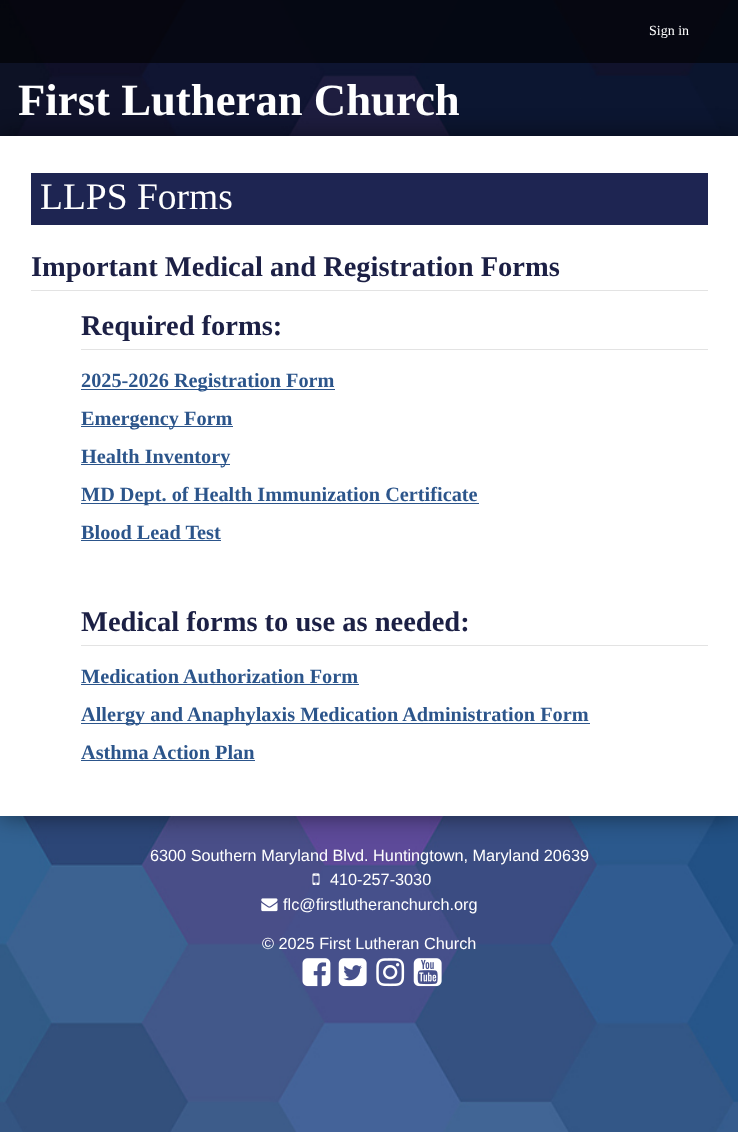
async function draw(canvas) {
  canvas.width = 738
  canvas.height = 1132
  const ctx = canvas.getContext('2d')
  ctx.miterLimit = 4
  ctx.fontKerning = 'normal'
  async function loadImage(src) {
    const img = new Image()
    img.src = src
    await img.decode()
    return img
  }

  ctx.fillStyle = '#fff'
  ctx.fillRect(0, 0, 738, 1132)
  ctx.drawImage(await loadImage('image0.png'), 0, 0, 738, 1132)
  ctx.fillStyle = '#00000099'
  ctx.fillRect(0, 0, 738, 63)
  ctx.font = '14px Liberation Serif'
  ctx.fillStyle = '#fff'
  ctx.fillText('Sign in', 649, 35)
  ctx.font = 'bold 44.75px Liberation Serif'
  ctx.fillText('First Lutheran Church', 18, 115)
  ctx.fillStyle = '#00000080'
  ctx.filter = 'blur(12.5px)'
  ctx.beginPath()
  ctx.rect(0, 136, 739, 680)
  ctx.fill()
  ctx.filter = 'none'
  ctx.fillStyle = '#fff'
  ctx.fillRect(0, 136, 738, 680)
  ctx.fillStyle = '#1e2552'
  ctx.fillRect(31, 173, 677, 52)
  ctx.font = '37.5px Liberation Serif'
  ctx.fillStyle = '#fff'
  ctx.fillText('LLPS Forms', 40, 209)
  ctx.fillStyle = '#e3e3e3'
  ctx.fillRect(31, 290, 677, 1)
  ctx.font = 'bold 28.5px Liberation Serif'
  ctx.fillStyle = '#1c2045'
  ctx.fillText('Important Medical and Registration Forms', 31, 276)
  ctx.fillStyle = '#e3e3e3'
  ctx.fillRect(81, 349, 627, 1)
  ctx.fillStyle = '#1c2045'
  ctx.fillText('Required forms:', 81, 335)
  ctx.fillStyle = '#2c558b'
  ctx.fillRect(81, 389, 254, 1)
  ctx.font = 'bold 20.3px Liberation Serif'
  ctx.fillText('2025-2026 Registration Form', 81, 387)
  ctx.fillRect(81, 426, 152, 1)
  ctx.fillText('Emergency Form', 81, 425)
  ctx.fillRect(81, 464, 149, 1)
  ctx.fillText('Health Inventory', 81, 463)
  ctx.fillRect(81, 503, 398, 1)
  ctx.fillText('MD Dept. of Health Immunization Certificate', 81, 501)
  ctx.fillText('Blood Lead Test', 81, 539)
  ctx.fillRect(81, 540, 140, 1)
  ctx.fillStyle = '#e3e3e3'
  ctx.fillRect(81, 645, 627, 1)
  ctx.font = 'bold 28.5px Liberation Serif'
  ctx.fillStyle = '#1c2045'
  ctx.fillText('Medical forms to use as needed:', 81, 631)
  ctx.font = 'bold 20.3px Liberation Serif'
  ctx.fillStyle = '#2c558b'
  ctx.fillText('Medication Authorization Form', 81, 683)
  ctx.fillRect(81, 684, 278, 1)
  ctx.fillRect(81, 723, 509, 1)
  ctx.fillText('Allergy and Anaphylaxis Medication Administration Form', 81, 721)
  ctx.fillText('Asthma Action Plan', 81, 759)
  ctx.fillRect(81, 760, 174, 1)
  ctx.font = '16.25px Liberation Sans'
  ctx.fillStyle = '#fff'
  ctx.fillText('6300 Southern Maryland Blvd. Huntingtown, Maryland 20639', 150, 861)
  ctx.drawImage(await loadImage('image1.png'), 312, 873, 8, 12)
  ctx.fillText('410-257-3030', 330, 885)
  ctx.drawImage(await loadImage('image2.png'), 261, 898, 17, 14)
  ctx.fillText('flc@firstlutheranchurch.org', 283, 910)
  ctx.fillText('© 2025 First Lutheran Church', 262, 949)
  ctx.drawImage(await loadImage('image3.png'), 302, 958, 29, 29)
  ctx.drawImage(await loadImage('image4.png'), 338, 958, 29, 29)
  ctx.drawImage(await loadImage('image5.png'), 376, 958, 29, 29)
  ctx.drawImage(await loadImage('image6.png'), 413, 958, 29, 29)
}

draw(document.querySelector('canvas'))
